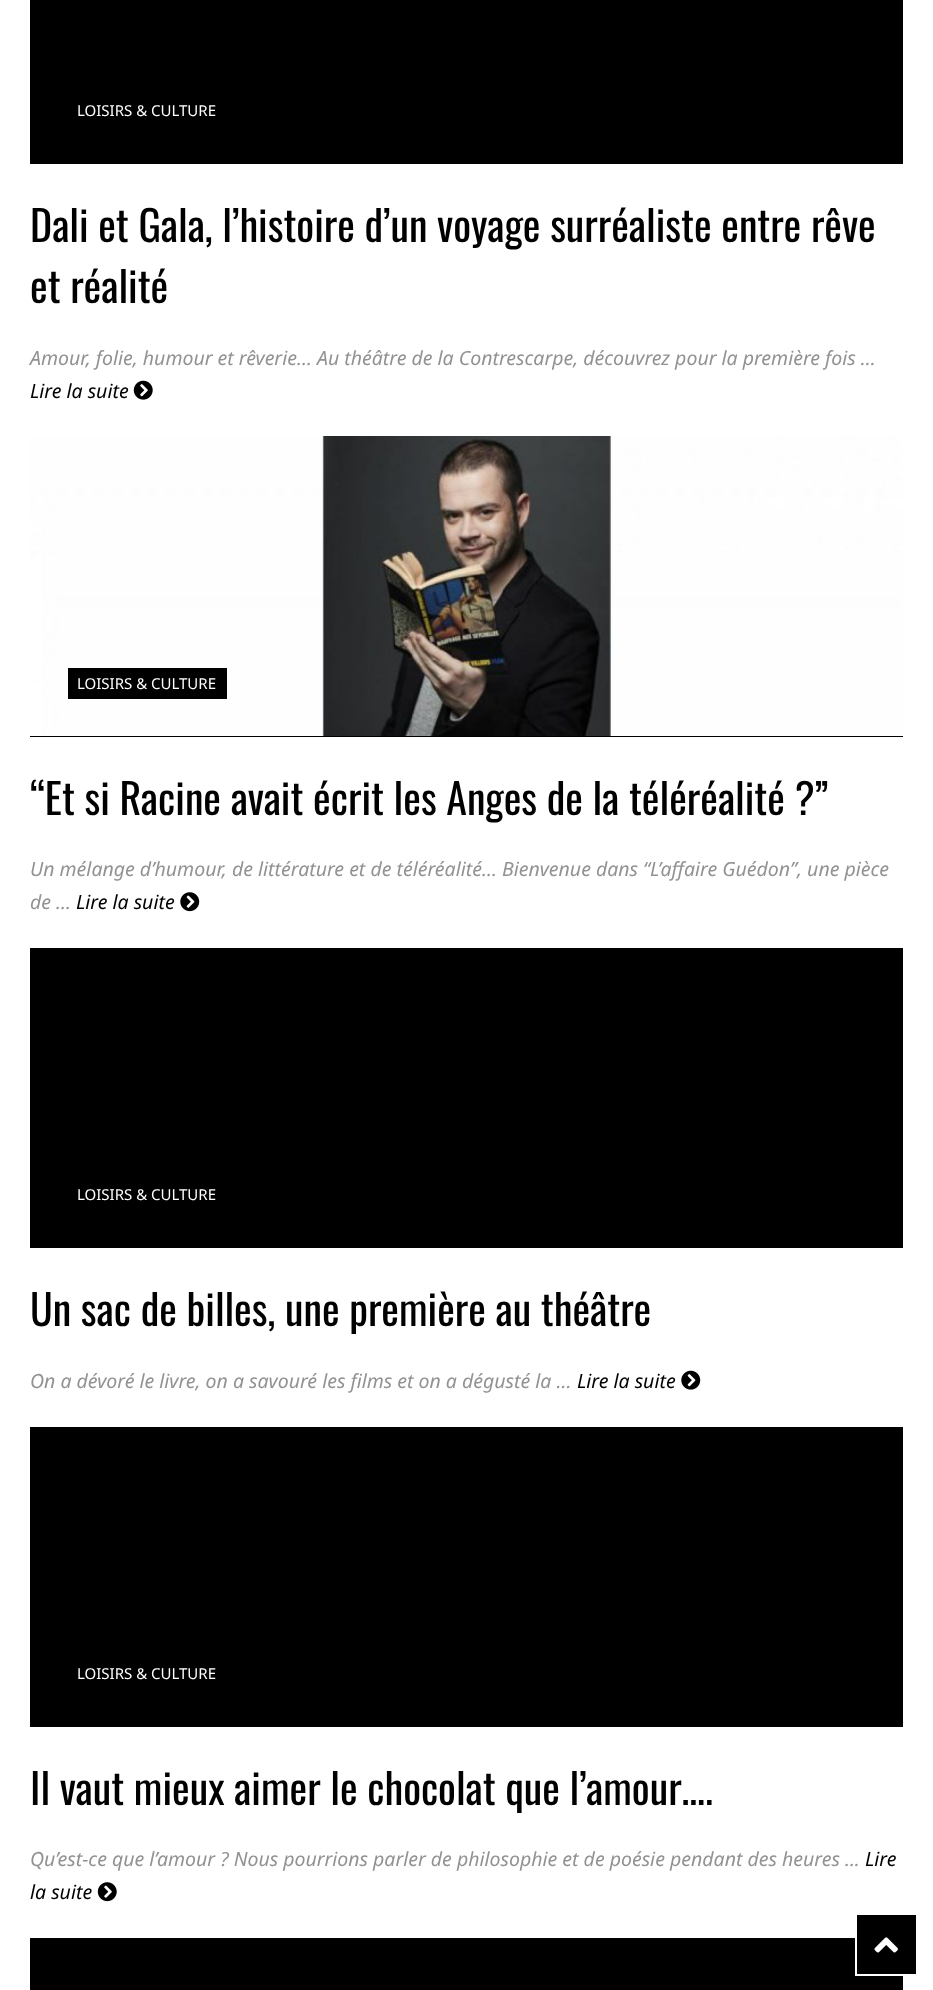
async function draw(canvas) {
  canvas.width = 933
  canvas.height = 1990
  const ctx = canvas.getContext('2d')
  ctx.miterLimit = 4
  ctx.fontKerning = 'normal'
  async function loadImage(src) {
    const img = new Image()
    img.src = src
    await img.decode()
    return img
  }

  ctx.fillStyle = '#fff'
  ctx.fillRect(0, 0, 933, 1990)
  ctx.fillStyle = '#000'
  ctx.fillRect(30, 0, 873, 164)
  ctx.font = '15px Noto Sans'
  ctx.fillStyle = '#fff'
  ctx.fillText('LOISIRS & CULTURE', 77, 116)
  ctx.font = '42px Oswald'
  ctx.fillStyle = '#000'
  ctx.fillText('Dali et Gala, l’histoire d’un voyage surréaliste entre rêve', 30, 242)
  ctx.fillText('et réalité', 30, 303)
  ctx.font = 'italic 19.5px Noto Sans'
  ctx.fillStyle = '#929292'
  ctx.fillText('Amour, folie, humour et rêverie… Au théâtre de la Contrescarpe, découvrez pour la première fois ...', 30, 365)
  ctx.fillStyle = '#000'
  ctx.fillText('Lire la suite', 30, 398)
  ctx.drawImage(await loadImage('image0.png'), 133, 380, 20, 20)
  ctx.fillRect(30, 736, 873, 1)
  ctx.drawImage(await loadImage('image1.png'), 30, 436, 873, 300)
  ctx.fillRect(68, 668, 159, 31)
  ctx.font = '15px Noto Sans'
  ctx.fillStyle = '#fff'
  ctx.fillText('LOISIRS & CULTURE', 77, 689)
  ctx.font = '42px Oswald'
  ctx.fillStyle = '#000'
  ctx.fillText('“Et si Racine avait écrit les Anges de la téléréalité ?”', 30, 815)
  ctx.font = 'italic 19.5px Noto Sans'
  ctx.fillStyle = '#929292'
  ctx.fillText('Un mélange d’humour, de littérature et de téléréalité… Bienvenue dans “L’affaire Guédon”, une pièce', 30, 876)
  ctx.fillText('de ...', 30, 909)
  ctx.fillStyle = '#000'
  ctx.fillText('Lire la suite', 76, 909)
  ctx.drawImage(await loadImage('image2.png'), 180, 892, 20, 20)
  ctx.fillRect(30, 948, 873, 300)
  ctx.font = '15px Noto Sans'
  ctx.fillStyle = '#fff'
  ctx.fillText('LOISIRS & CULTURE', 77, 1200)
  ctx.font = '42px Oswald'
  ctx.fillStyle = '#000'
  ctx.fillText('Un sac de billes, une première au théâtre', 30, 1326)
  ctx.font = 'italic 19.5px Noto Sans'
  ctx.fillStyle = '#929292'
  ctx.fillText('On a dévoré le livre, on a savouré les films et on a dégusté la ...', 30, 1388)
  ctx.fillStyle = '#000'
  ctx.fillText('Lire la suite', 577, 1388)
  ctx.drawImage(await loadImage('image3.png'), 681, 1370, 20, 20)
  ctx.fillRect(30, 1427, 873, 300)
  ctx.font = '15px Noto Sans'
  ctx.fillStyle = '#fff'
  ctx.fillText('LOISIRS & CULTURE', 77, 1679)
  ctx.font = '42px Oswald'
  ctx.fillStyle = '#000'
  ctx.fillText('Il vaut mieux aimer le chocolat que l’amour….', 30, 1805)
  ctx.font = 'italic 19.5px Noto Sans'
  ctx.fillText('Lire', 865, 1866)
  ctx.fillText('la suite', 30, 1899)
  ctx.drawImage(await loadImage('image4.png'), 97, 1882, 20, 20)
  ctx.fillStyle = '#929292'
  ctx.fillText('Qu’est-ce que l’amour ? Nous pourrions parler de philosophie et de poésie pendant des heures ...', 30, 1866)
  ctx.fillStyle = '#000'
  ctx.fillRect(30, 1938, 873, 52)
  ctx.beginPath()
  ctx.rect(856, 1914, 61, 61)
  ctx.fill()
  ctx.strokeStyle = '#fff'
  ctx.lineWidth = 2
  ctx.stroke()
  ctx.drawImage(await loadImage('image5.png'), 874, 1937, 24, 16)
}

draw(document.querySelector('canvas'))
